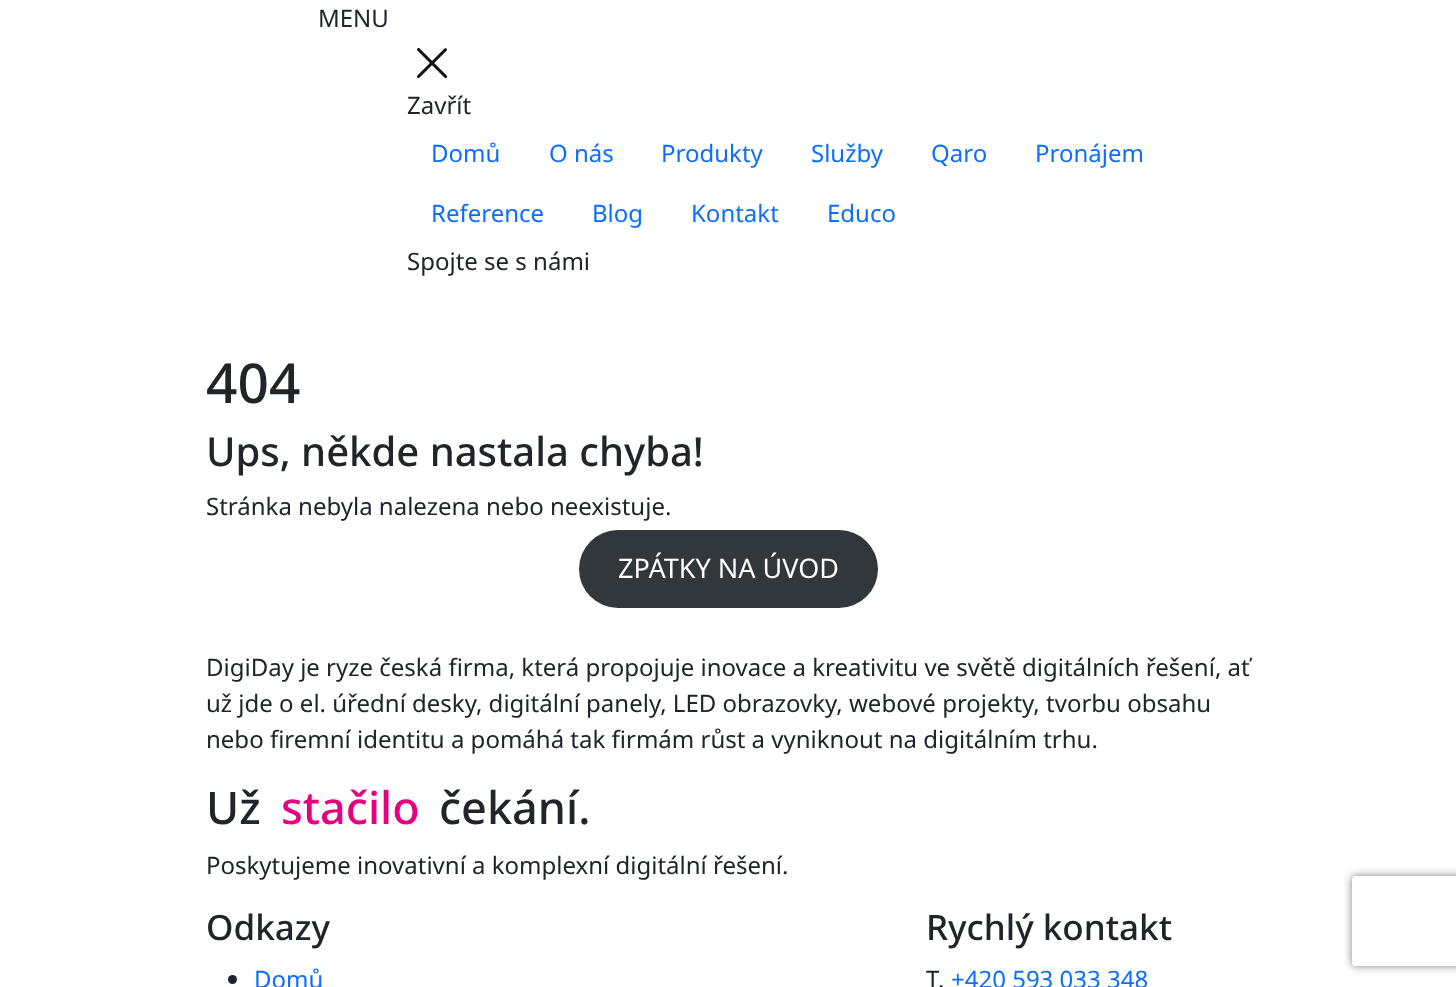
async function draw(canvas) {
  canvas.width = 1456
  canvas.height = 987
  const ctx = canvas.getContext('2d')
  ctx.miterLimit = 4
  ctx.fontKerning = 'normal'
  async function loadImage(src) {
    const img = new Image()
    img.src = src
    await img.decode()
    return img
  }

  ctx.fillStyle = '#fff'
  ctx.fillRect(0, 0, 1456, 987)
  ctx.font = '24px Noto Sans'
  ctx.fillStyle = '#212529'
  ctx.fillText('MENU', 318, 27)
  ctx.drawImage(await loadImage('image0.png'), 417, 48, 30, 30)
  ctx.fillText('Zavřít', 407, 114)
  ctx.fillStyle = '#0d6efd'
  ctx.fillText('Domů', 431, 162)
  ctx.fillText('O nás', 549, 162)
  ctx.fillText('Produkty', 661, 162)
  ctx.fillText('Služby', 811, 162)
  ctx.fillText('Qaro', 931, 162)
  ctx.fillText('Pronájem', 1035, 162)
  ctx.fillText('Reference', 431, 222)
  ctx.fillText('Blog', 592, 222)
  ctx.fillText('Kontakt', 691, 222)
  ctx.fillText('Educo', 827, 222)
  ctx.fillStyle = '#212529'
  ctx.fillText('Spojte se s námi', 407, 270)
  ctx.font = '500 55px Noto Sans'
  ctx.fillText('404', 206, 403)
  ctx.font = '500 40px Noto Sans'
  ctx.fillText('Ups, někde nastala chyba!', 206, 466)
  ctx.font = '24px Noto Sans'
  ctx.fillText('Stránka nebyla nalezena nebo neexistuje.', 206, 515)
  ctx.fillStyle = '#32373c'
  ctx.beginPath()
  ctx.roundRect(579, 530, 299, 78, 39)
  ctx.fill()
  ctx.font = '27px Noto Sans'
  ctx.fillStyle = '#fff'
  ctx.fillText('ZPÁTKY NA ÚVOD', 618, 578)
  ctx.font = '24px Noto Sans'
  ctx.fillStyle = '#212529'
  ctx.fillText('DigiDay je ryze česká firma, která propojuje inovace a kreativitu ve světě digitálních řešení, ať', 206, 676)
  ctx.fillText('už jde o el. úřední desky, digitální panely, LED obrazovky, webové projekty, tvorbu obsahu', 206, 712)
  ctx.fillText('nebo firemní identitu a pomáhá tak firmám růst a vyniknout na digitálním trhu.', 206, 748)
  ctx.font = '500 45px Noto Sans'
  ctx.fillText('Už', 206, 824)
  ctx.fillStyle = '#e6007f'
  ctx.fillText('stačilo', 281, 824)
  ctx.fillStyle = '#212529'
  ctx.fillText('čekání.', 439, 824)
  ctx.font = '24px Noto Sans'
  ctx.fillText('Poskytujeme inovativní a komplexní digitální řešení.', 206, 874)
  ctx.font = '500 35px Noto Sans'
  ctx.fillText('Odkazy', 206, 940)
  ctx.beginPath()
  ctx.arc(232.5, 979.5, 4.5, 0, 2 * Math.PI)
  ctx.fill()
  ctx.font = '24px Noto Sans'
  ctx.fillStyle = '#0d6efd'
  ctx.fillText('Domů', 254, 988)
  ctx.font = '500 35px Noto Sans'
  ctx.fillStyle = '#212529'
  ctx.fillText('Rychlý kontakt', 926, 940)
  ctx.font = '24px Noto Sans'
  ctx.fillText('T.', 926, 988)
  ctx.fillStyle = '#0d6efd'
  ctx.fillText('+420 593 033 348', 951, 988)
  ctx.save()
  ctx.beginPath()
  ctx.moveTo(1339, 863)
  ctx.lineTo(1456, 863)
  ctx.lineTo(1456, 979)
  ctx.lineTo(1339, 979)
  ctx.closePath()
  ctx.moveTo(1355, 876)
  ctx.lineTo(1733, 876)
  ctx.bezierCurveTo(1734.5, 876, 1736, 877.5, 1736, 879)
  ctx.lineTo(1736, 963)
  ctx.bezierCurveTo(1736, 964.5, 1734.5, 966, 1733, 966)
  ctx.lineTo(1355, 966)
  ctx.bezierCurveTo(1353.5, 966, 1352, 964.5, 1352, 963)
  ctx.lineTo(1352, 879)
  ctx.bezierCurveTo(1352, 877.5, 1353.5, 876, 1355, 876)
  ctx.closePath()
  ctx.clip('evenodd')
  ctx.fillStyle = '#808080'
  ctx.filter = 'blur(4px)'
  ctx.beginPath()
  ctx.roundRect(1352, 876, 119, 90, 3)
  ctx.fill()
  ctx.filter = 'none'
  ctx.restore()
}

draw(document.querySelector('canvas'))
